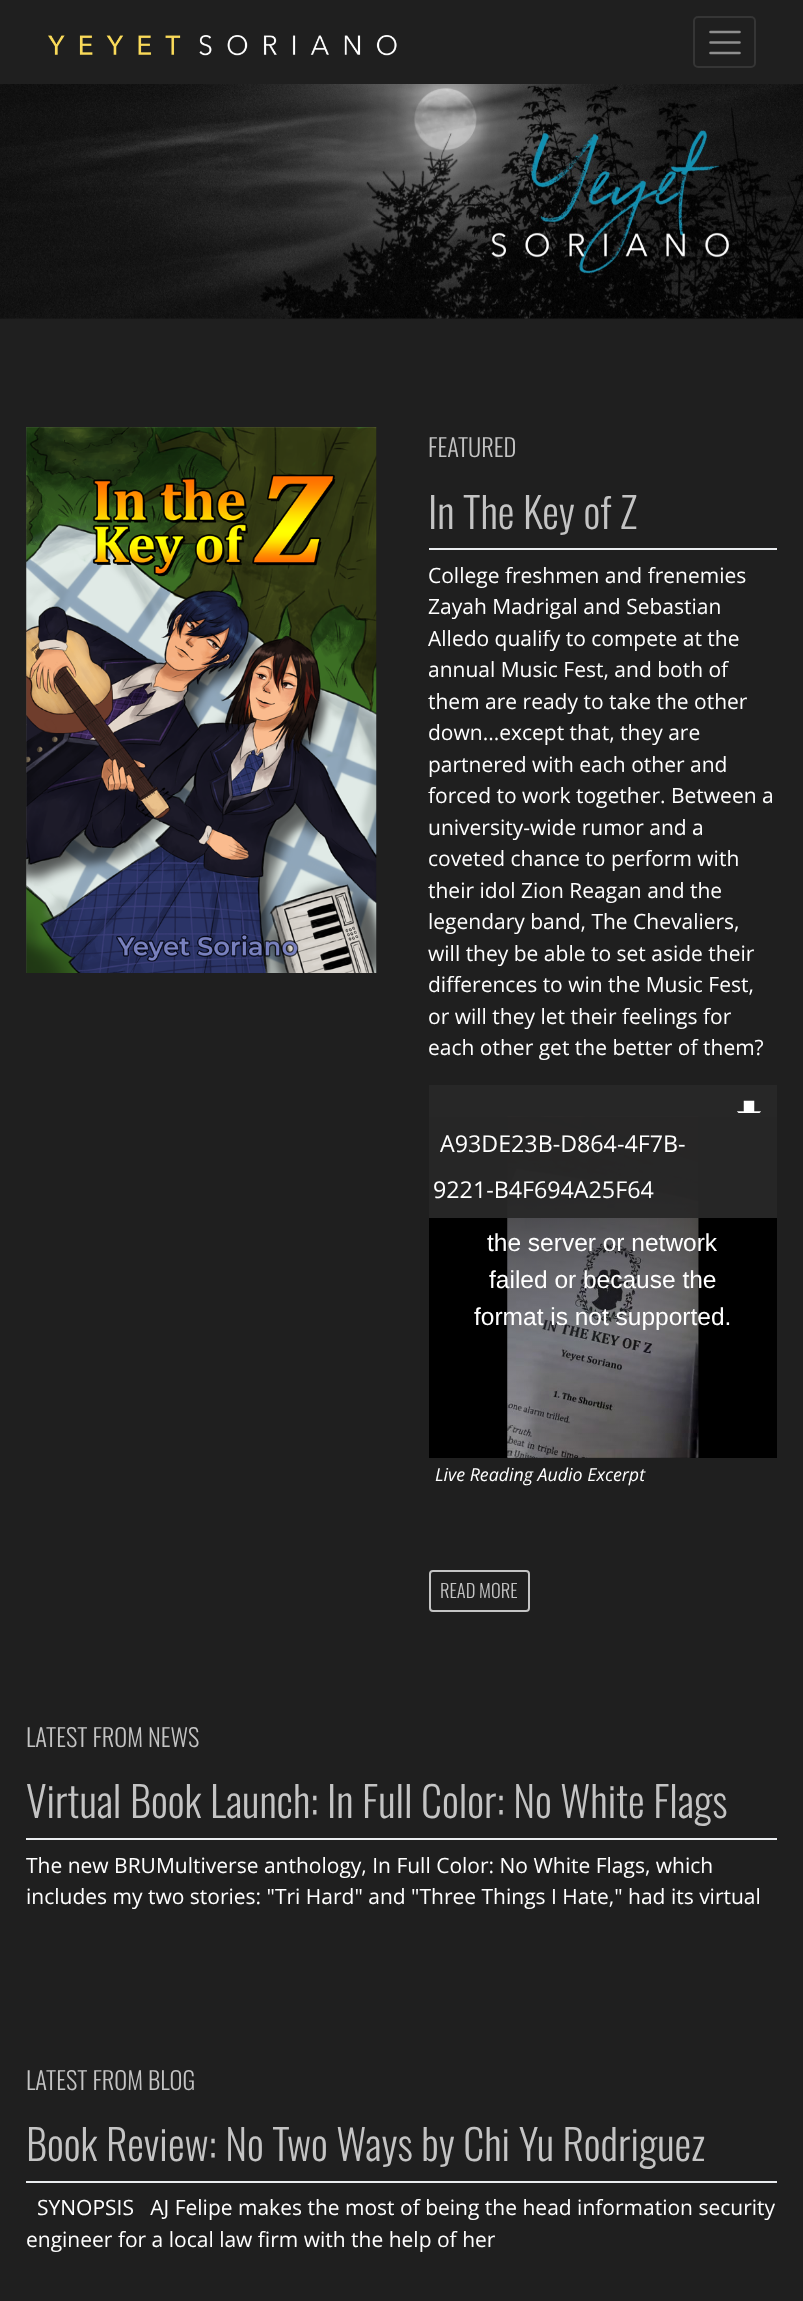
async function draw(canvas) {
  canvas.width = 803
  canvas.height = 2301
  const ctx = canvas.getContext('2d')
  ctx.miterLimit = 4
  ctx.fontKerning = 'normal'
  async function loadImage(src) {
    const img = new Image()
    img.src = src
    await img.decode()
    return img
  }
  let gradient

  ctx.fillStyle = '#1f1f1f'
  ctx.fillRect(0, 0, 803, 2301)
  ctx.drawImage(await loadImage('image0.png'), 48, 35, 349, 21)
  ctx.beginPath()
  ctx.roundRect(694, 17, 61, 50, 4)
  ctx.strokeStyle = '#353535'
  ctx.lineWidth = 2
  ctx.stroke()
  ctx.beginPath()
  ctx.moveTo(710.5, 32)
  ctx.lineTo(739.5, 32)
  ctx.moveTo(710.5, 42.5)
  ctx.lineTo(739.5, 42.5)
  ctx.moveTo(710.5, 53)
  ctx.lineTo(739.5, 53)
  ctx.strokeStyle = '#8f8f8f'
  ctx.lineWidth = 2.6
  ctx.lineCap = 'round'
  ctx.stroke()
  ctx.drawImage(await loadImage('image1.png'), 0, 84, 803, 235)
  ctx.drawImage(await loadImage('image2.png'), 26, 427, 351, 546)
  ctx.font = '300 24.5px Oswald'
  ctx.fillStyle = '#c4c4c4'
  ctx.fillText('FEATURED', 428, 457)
  ctx.fillStyle = '#eaecef'
  ctx.fillRect(429, 548, 348, 2)
  ctx.font = '300 42px Oswald'
  ctx.fillStyle = '#c4c4c4'
  ctx.fillText('In The Key of Z', 428, 529)
  ctx.font = '21px Open Sans'
  ctx.fillStyle = '#fff'
  ctx.fillText('College freshmen and frenemies', 428, 583)
  ctx.fillText('Zayah Madrigal and Sebastian', 428, 614)
  ctx.fillText('Alledo qualify to compete at the', 428, 646)
  ctx.fillText('annual Music Fest, and both of', 428, 677)
  ctx.fillText('them are ready to take the other', 428, 709)
  ctx.fillText('down...except that, they are', 428, 740)
  ctx.fillText('partnered with each other and', 428, 772)
  ctx.fillText('forced to work together. Between a', 428, 803)
  ctx.fillText('university-wide rumor and a', 428, 835)
  ctx.fillText('coveted chance to perform with', 428, 866)
  ctx.fillText('their idol Zion Reagan and the', 428, 898)
  ctx.fillText('legendary band, The Chevaliers,', 428, 929)
  ctx.fillText('will they be able to set aside their', 428, 961)
  ctx.fillText('differences to win the Music Fest,', 428, 992)
  ctx.fillText('or will they let their feelings for', 428, 1024)
  ctx.fillText('each other get the better of them?', 428, 1055)
  ctx.fillStyle = '#000'
  ctx.fillRect(429, 1117, 348, 341)
  ctx.drawImage(await loadImage('image4.png'), 507, 1116, 192, 342)
  ctx.drawImage(await loadImage('image5.png'), 507, 1116, 192, 342)
  gradient = ctx.createLinearGradient(603, 1117, 603, 1458)
  gradient.addColorStop(0, '#000000cc')
  gradient.addColorStop(1, '#00000000')
  ctx.fillStyle = gradient
  ctx.fillRect(507, 1117, 192, 332)
  ctx.fillStyle = '#282828f2'
  ctx.fillRect(429, 1085, 348, 133)
  ctx.drawImage(await loadImage('image3.png'), 737, 1100, 24, 13)
  ctx.font = '23.25px Open Sans'
  ctx.fillStyle = '#fff'
  ctx.fillText('A93DE23B-D864-4F7B-', 440, 1152)
  ctx.fillText('9221-B4F694A25F64', 433, 1198)
  ctx.font = '24.5px Liberation Sans'
  ctx.fillText('the server or network', 487, 1251)
  ctx.fillText('failed or because the', 489, 1288)
  ctx.fillText('format is not supported.', 474, 1325)
  ctx.font = 'italic 17.8px Open Sans'
  ctx.fillText('Live Reading Audio Excerpt', 435, 1481)
  ctx.beginPath()
  ctx.roundRect(430, 1571, 99, 40, 3)
  ctx.strokeStyle = '#c4c4c4'
  ctx.lineWidth = 2
  ctx.stroke()
  ctx.font = '300 18.5px Oswald'
  ctx.fillStyle = '#c4c4c4'
  ctx.fillText('READ MORE', 440, 1598)
  ctx.font = '300 24.5px Oswald'
  ctx.fillText('LATEST FROM NEWS', 26, 1747)
  ctx.fillStyle = '#eaecef'
  ctx.fillRect(26, 1838, 751, 2)
  ctx.font = '300 42px Oswald'
  ctx.fillStyle = '#c4c4c4'
  ctx.fillText('Virtual Book Launch: In Full Color: No White Flags', 26, 1818)
  ctx.font = '21px Open Sans'
  ctx.fillStyle = '#fff'
  ctx.fillText('The new BRUMultiverse anthology, In Full Color: No White Flags, which', 26, 1873)
  ctx.fillText('includes my two stories: "Tri Hard" and "Three Things I Hate," had its virtual', 26, 1904)
  ctx.font = '300 24.5px Oswald'
  ctx.fillStyle = '#c4c4c4'
  ctx.fillText('LATEST FROM BLOG', 26, 2090)
  ctx.fillStyle = '#eaecef'
  ctx.fillRect(26, 2181, 751, 2)
  ctx.font = '300 42px Oswald'
  ctx.fillStyle = '#c4c4c4'
  ctx.fillText('Book Review: No Two Ways by Chi Yu Rodriguez', 26, 2161)
  ctx.font = '21px Open Sans'
  ctx.fillStyle = '#fff'
  ctx.fillText('SYNOPSIS   AJ Felipe makes the most of being the head information security', 37, 2215)
  ctx.fillText('engineer for a local law firm with the help of her', 26, 2247)
}

draw(document.querySelector('canvas'))
